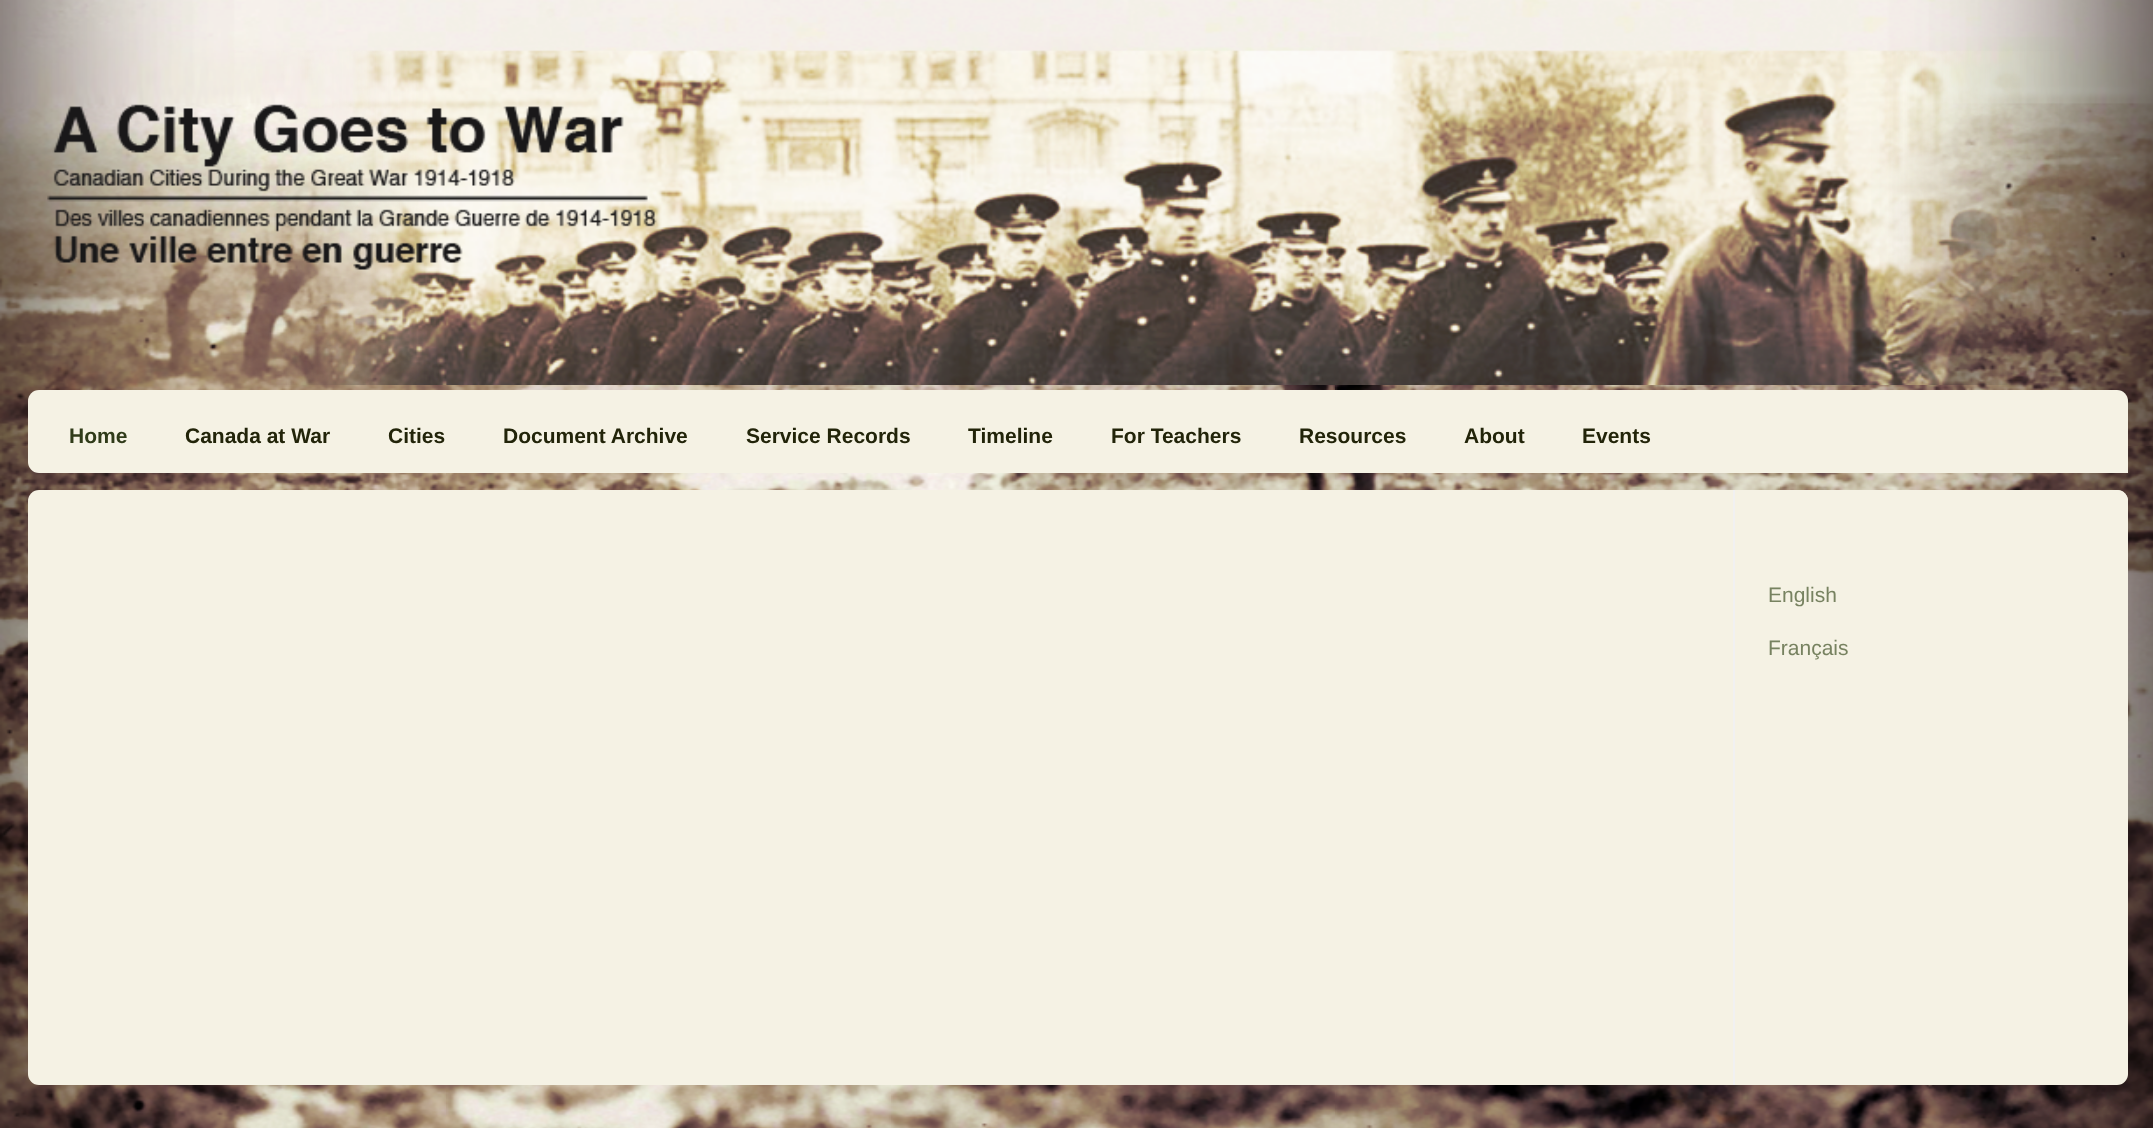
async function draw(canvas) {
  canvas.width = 2153
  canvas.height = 1128
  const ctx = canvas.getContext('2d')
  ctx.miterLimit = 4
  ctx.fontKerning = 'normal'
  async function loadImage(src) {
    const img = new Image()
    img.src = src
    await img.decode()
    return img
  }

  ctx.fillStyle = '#fff'
  ctx.fillRect(0, 0, 2153, 1128)
  ctx.drawImage(await loadImage('image0.png'), 0, 0, 2153, 1128)
  ctx.drawImage(await loadImage('image1.png'), 47, 50, 2012, 335)
  ctx.fillStyle = '#f5f2e4'
  ctx.beginPath()
  ctx.roundRect(28, 390, 2100, 83, 11)
  ctx.fill()
  ctx.fillRect(2117, 462, 11, 11)
  ctx.font = 'bold 21px Liberation Sans'
  ctx.fillStyle = '#303b19'
  ctx.fillText('Home', 69, 443)
  ctx.fillStyle = '#222409'
  ctx.fillText('Canada at War', 185, 443)
  ctx.fillText('Cities', 388, 443)
  ctx.fillText('Document Archive', 503, 443)
  ctx.fillText('Service Records', 746, 443)
  ctx.fillText('Timeline', 968, 443)
  ctx.fillText('For Teachers', 1111, 443)
  ctx.fillText('Resources', 1299, 443)
  ctx.fillText('About', 1464, 443)
  ctx.fillText('Events', 1582, 443)
  ctx.fillStyle = '#f5f2e4'
  ctx.beginPath()
  ctx.roundRect(28, 490, 2100, 595, 11)
  ctx.fill()
  ctx.beginPath()
  ctx.roundRect(1734, 490, 394, 264, [0, 11, 0, 0])
  ctx.fill()
  ctx.fillStyle = '#f1f1f1'
  ctx.fillRect(1733, 490, 2, 595)
  ctx.font = '21px Liberation Sans'
  ctx.fillStyle = '#778260'
  ctx.fillText('English', 1768, 602)
  ctx.fillText('Français', 1768, 655)
}

draw(document.querySelector('canvas'))
